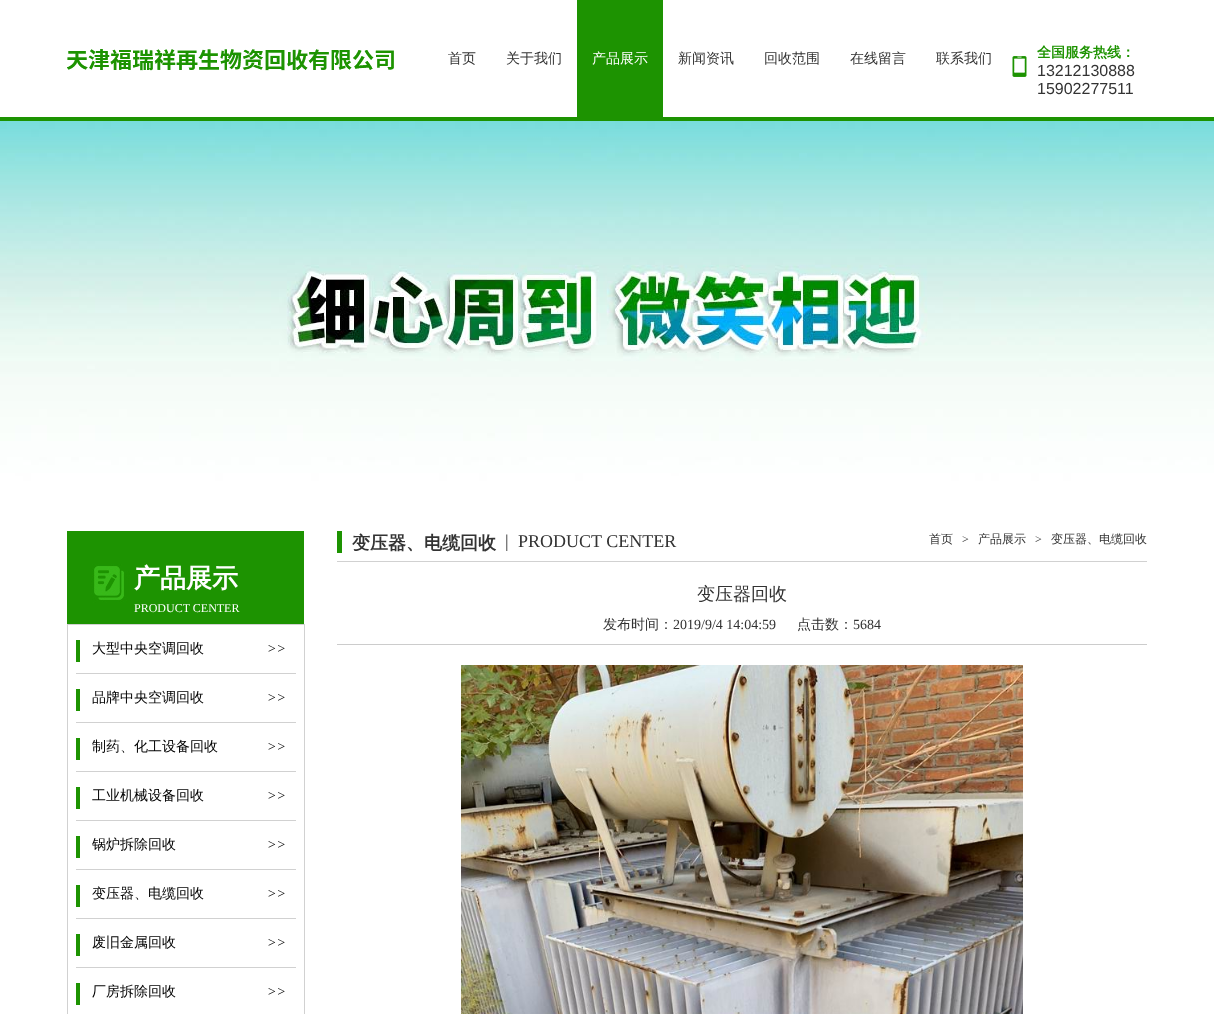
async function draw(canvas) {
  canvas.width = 1214
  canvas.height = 1014
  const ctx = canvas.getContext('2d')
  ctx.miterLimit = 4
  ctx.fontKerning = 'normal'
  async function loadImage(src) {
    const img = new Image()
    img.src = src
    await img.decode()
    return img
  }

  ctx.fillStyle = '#fff'
  ctx.fillRect(0, 0, 1214, 1014)
  ctx.fillStyle = '#1d9301'
  ctx.fillRect(0, 117, 1214, 4)
  ctx.drawImage(await loadImage('image0.png'), 67, 49, 327, 22)
  ctx.font = '500 14px WenQuanYi Zen Hei'
  ctx.fillStyle = '#333'
  ctx.fillText('首页', 448, 63)
  ctx.fillText('关于我们', 506, 63)
  ctx.fillStyle = '#1d9301'
  ctx.fillRect(577, 0, 86, 117)
  ctx.fillStyle = '#fff'
  ctx.fillText('产品展示', 592, 63)
  ctx.fillStyle = '#333'
  ctx.fillText('新闻资讯', 678, 63)
  ctx.fillText('回收范围', 764, 63)
  ctx.fillText('在线留言', 850, 63)
  ctx.fillText('联系我们', 936, 63)
  ctx.font = 'bold 14px WenQuanYi Zen Hei'
  ctx.fillStyle = '#1d9301'
  ctx.fillText('全国服务热线：', 1037, 57)
  ctx.drawImage(await loadImage('image1.png'), 1012, 56, 15, 21)
  ctx.font = '16px Liberation Sans'
  ctx.fillStyle = '#333'
  ctx.fillText('13212130888', 1037, 76)
  ctx.fillText('15902277511', 1037, 94)
  ctx.drawImage(await loadImage('image2.png'), 0, 121, 1214, 380)
  ctx.drawImage(await loadImage('image3.png'), 67, 531, 237, 93)
  ctx.font = 'bold 26px WenQuanYi Zen Hei'
  ctx.fillStyle = '#fff'
  ctx.fillText('产品展示', 134, 587)
  ctx.font = '12px Liberation Serif'
  ctx.fillText('PRODUCT CENTER', 134, 612)
  ctx.strokeStyle = '#d1d1d1'
  ctx.strokeRect(67.5, 624.5, 237, 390)
  ctx.fillStyle = '#d1d1d1'
  ctx.fillRect(76, 673, 220, 1)
  ctx.fillStyle = '#1d9301'
  ctx.fillRect(76, 640, 4, 22)
  ctx.font = '500 14px WenQuanYi Zen Hei'
  ctx.fillStyle = '#000'
  ctx.fillText('大型中央空调回收', 92, 653)
  ctx.font = 'italic 14px Liberation Serif'
  ctx.fillText('>>', 267, 653)
  ctx.fillStyle = '#d1d1d1'
  ctx.fillRect(76, 722, 220, 1)
  ctx.fillStyle = '#1d9301'
  ctx.fillRect(76, 689, 4, 22)
  ctx.font = '500 14px WenQuanYi Zen Hei'
  ctx.fillStyle = '#000'
  ctx.fillText('品牌中央空调回收', 92, 702)
  ctx.font = 'italic 14px Liberation Serif'
  ctx.fillText('>>', 267, 702)
  ctx.fillStyle = '#d1d1d1'
  ctx.fillRect(76, 771, 220, 1)
  ctx.fillStyle = '#1d9301'
  ctx.fillRect(76, 738, 4, 22)
  ctx.font = '500 14px WenQuanYi Zen Hei'
  ctx.fillStyle = '#000'
  ctx.fillText('制药、化工设备回收', 92, 751)
  ctx.font = 'italic 14px Liberation Serif'
  ctx.fillText('>>', 267, 751)
  ctx.fillStyle = '#d1d1d1'
  ctx.fillRect(76, 820, 220, 1)
  ctx.fillStyle = '#1d9301'
  ctx.fillRect(76, 787, 4, 22)
  ctx.font = '500 14px WenQuanYi Zen Hei'
  ctx.fillStyle = '#000'
  ctx.fillText('工业机械设备回收', 92, 800)
  ctx.font = 'italic 14px Liberation Serif'
  ctx.fillText('>>', 267, 800)
  ctx.fillStyle = '#d1d1d1'
  ctx.fillRect(76, 869, 220, 1)
  ctx.fillStyle = '#1d9301'
  ctx.fillRect(76, 836, 4, 22)
  ctx.font = '500 14px WenQuanYi Zen Hei'
  ctx.fillStyle = '#000'
  ctx.fillText('锅炉拆除回收', 92, 849)
  ctx.font = 'italic 14px Liberation Serif'
  ctx.fillText('>>', 267, 849)
  ctx.fillStyle = '#d1d1d1'
  ctx.fillRect(76, 918, 220, 1)
  ctx.fillStyle = '#1d9301'
  ctx.fillRect(76, 885, 4, 22)
  ctx.font = '500 14px WenQuanYi Zen Hei'
  ctx.fillStyle = '#000'
  ctx.fillText('变压器、电缆回收', 92, 898)
  ctx.font = 'italic 14px Liberation Serif'
  ctx.fillText('>>', 267, 898)
  ctx.fillStyle = '#d1d1d1'
  ctx.fillRect(76, 967, 220, 1)
  ctx.fillStyle = '#1d9301'
  ctx.fillRect(76, 934, 4, 22)
  ctx.font = '500 14px WenQuanYi Zen Hei'
  ctx.fillStyle = '#000'
  ctx.fillText('废旧金属回收', 92, 947)
  ctx.font = 'italic 14px Liberation Serif'
  ctx.fillText('>>', 267, 947)
  ctx.fillStyle = '#1d9301'
  ctx.fillRect(76, 983, 4, 22)
  ctx.font = '500 14px WenQuanYi Zen Hei'
  ctx.fillStyle = '#000'
  ctx.fillText('厂房拆除回收', 92, 996)
  ctx.font = 'italic 14px Liberation Serif'
  ctx.fillText('>>', 267, 996)
  ctx.fillStyle = '#d1d1d1'
  ctx.fillRect(337, 561, 810, 1)
  ctx.fillStyle = '#1d9301'
  ctx.fillRect(337, 531, 5, 22)
  ctx.font = 'bold 18px WenQuanYi Zen Hei'
  ctx.fillStyle = '#333'
  ctx.fillText('变压器、电缆回收', 352, 549)
  ctx.font = '18px Liberation Serif'
  ctx.fillText('|', 505, 547)
  ctx.fillText('PRODUCT CENTER', 518, 547)
  ctx.font = '500 12px WenQuanYi Zen Hei'
  ctx.fillText('首页', 929, 543)
  ctx.font = '12px Liberation Serif'
  ctx.fillText('>', 962, 543)
  ctx.font = '500 12px WenQuanYi Zen Hei'
  ctx.fillText('产品展示', 978, 543)
  ctx.font = '12px Liberation Serif'
  ctx.fillText('>', 1035, 543)
  ctx.font = '500 12px WenQuanYi Zen Hei'
  ctx.fillText('变压器、电缆回收', 1051, 543)
  ctx.fillStyle = '#ccc'
  ctx.fillRect(337, 644, 810, 1)
  ctx.font = '500 18px WenQuanYi Zen Hei'
  ctx.fillStyle = '#333'
  ctx.fillText('变压器回收', 697, 600)
  ctx.font = '500 14px WenQuanYi Zen Hei'
  ctx.fillText('发布时间：', 603, 629)
  ctx.font = '14px Liberation Serif'
  ctx.fillText('2019/9/4 14:04:59', 673, 629)
  ctx.font = '500 14px WenQuanYi Zen Hei'
  ctx.fillText('点击数：', 797, 629)
  ctx.font = '14px Liberation Serif'
  ctx.fillText('5684', 853, 629)
  ctx.drawImage(await loadImage('image4.png'), 461, 665, 562, 349)
}

draw(document.querySelector('canvas'))
